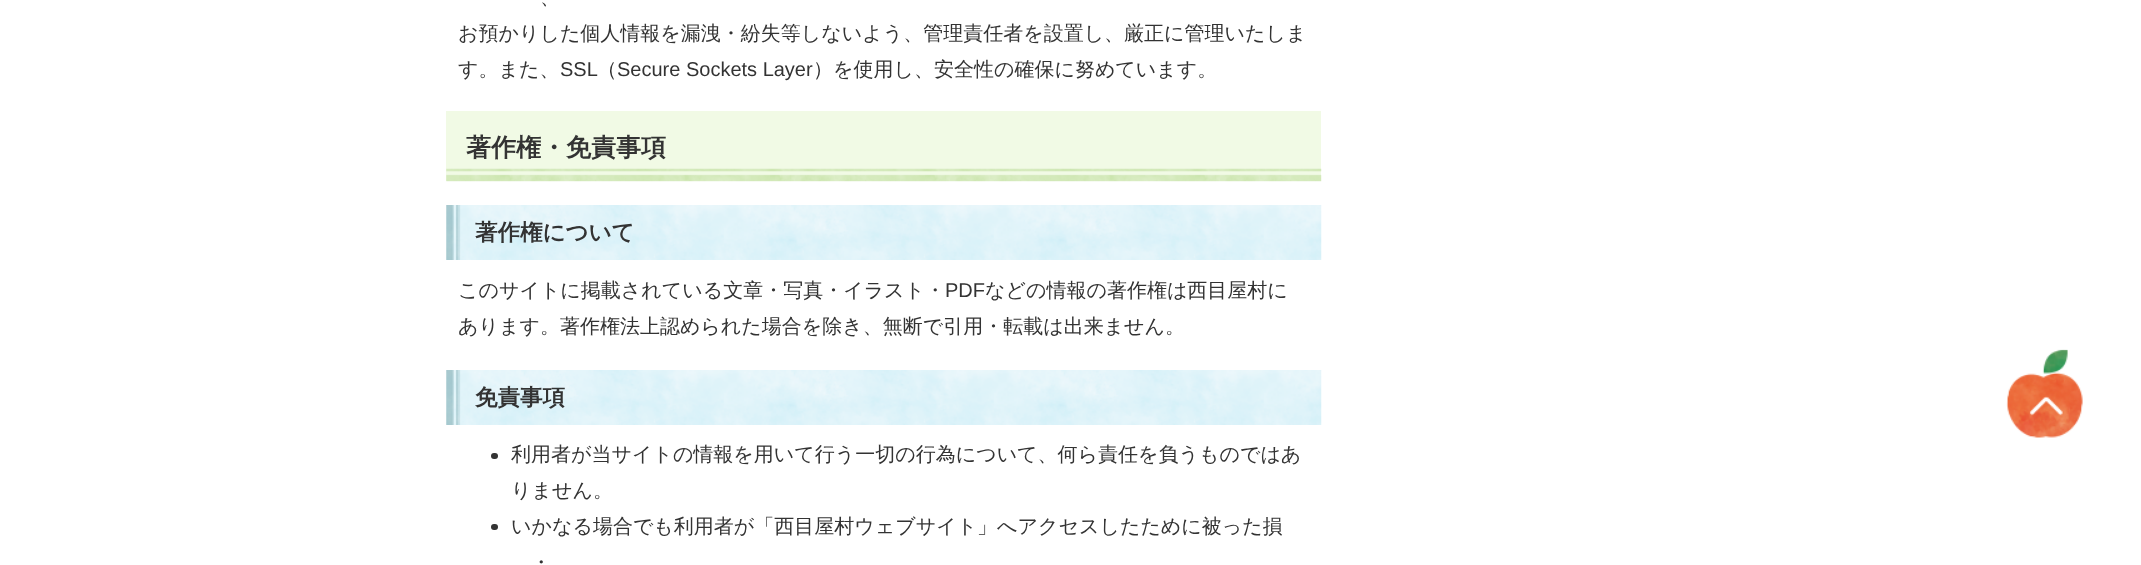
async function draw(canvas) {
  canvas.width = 2141
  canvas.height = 565
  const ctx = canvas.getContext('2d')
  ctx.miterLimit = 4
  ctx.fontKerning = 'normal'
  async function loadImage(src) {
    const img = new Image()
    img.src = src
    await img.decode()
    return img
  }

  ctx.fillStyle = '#fff'
  ctx.fillRect(0, 0, 2141, 565)
  ctx.font = '500 20px WenQuanYi Zen Hei'
  ctx.fillStyle = '#333'
  ctx.fillText('、', 540, 4)
  ctx.fillText('お預かりした個人情報を漏洩・紛失等しないよう、管理責任者を設置し、厳正に管理いたしま', 458, 40)
  ctx.fillText('す。また、', 458, 76)
  ctx.font = '20px Liberation Sans'
  ctx.fillText('SSL', 560, 76)
  ctx.font = '500 20px WenQuanYi Zen Hei'
  ctx.fillText('（', 597, 76)
  ctx.font = '20px Liberation Sans'
  ctx.fillText('Secure Sockets Layer', 617, 76)
  ctx.font = '500 20px WenQuanYi Zen Hei'
  ctx.fillText('）を使用し、安全性の確保に努めています。', 813, 76)
  ctx.fillStyle = '#f1fae5'
  ctx.fillRect(446, 111, 875, 70)
  ctx.drawImage(await loadImage('image0.png'), 446, 168, 876, 14)
  ctx.font = 'bold 25px WenQuanYi Zen Hei'
  ctx.fillStyle = '#333'
  ctx.fillText('著作権・免責事項', 466, 156)
  ctx.drawImage(await loadImage('image1.png'), 446, 205, 876, 55)
  ctx.font = 'bold 22.5px WenQuanYi Zen Hei'
  ctx.fillText('著作権について', 475, 240)
  ctx.font = '500 20px WenQuanYi Zen Hei'
  ctx.fillText('このサイトに掲載されている文章・写真・イラスト・', 458, 297)
  ctx.font = '20px Liberation Sans'
  ctx.fillText('PDF', 945, 297)
  ctx.font = '500 20px WenQuanYi Zen Hei'
  ctx.fillText('などの情報の著作権は西目屋村に', 985, 297)
  ctx.fillText('あります。著作権法上認められた場合を除き、無断で引用・転載は出来ません。', 458, 333)
  ctx.drawImage(await loadImage('image1.png'), 446, 370, 876, 55)
  ctx.font = 'bold 22.5px WenQuanYi Zen Hei'
  ctx.fillText('免責事項', 475, 405)
  ctx.beginPath()
  ctx.roundRect(491, 453, 7, 6, 3)
  ctx.fill()
  ctx.font = '500 20px WenQuanYi Zen Hei'
  ctx.fillText('利用者が当サイトの情報を用いて行う一切の行為について、何ら責任を負うものではあ', 511, 461)
  ctx.fillText('りません。', 511, 497)
  ctx.beginPath()
  ctx.roundRect(491, 524, 7, 6, 3)
  ctx.fill()
  ctx.fillText('いかなる場合でも利用者が「西目屋村ウェブサイト」へアクセスしたために被った損', 511, 533)
  ctx.fillText('・', 531, 569)
  ctx.drawImage(await loadImage('image2.png'), 2006, 349, 77, 89)
}

draw(document.querySelector('canvas'))
